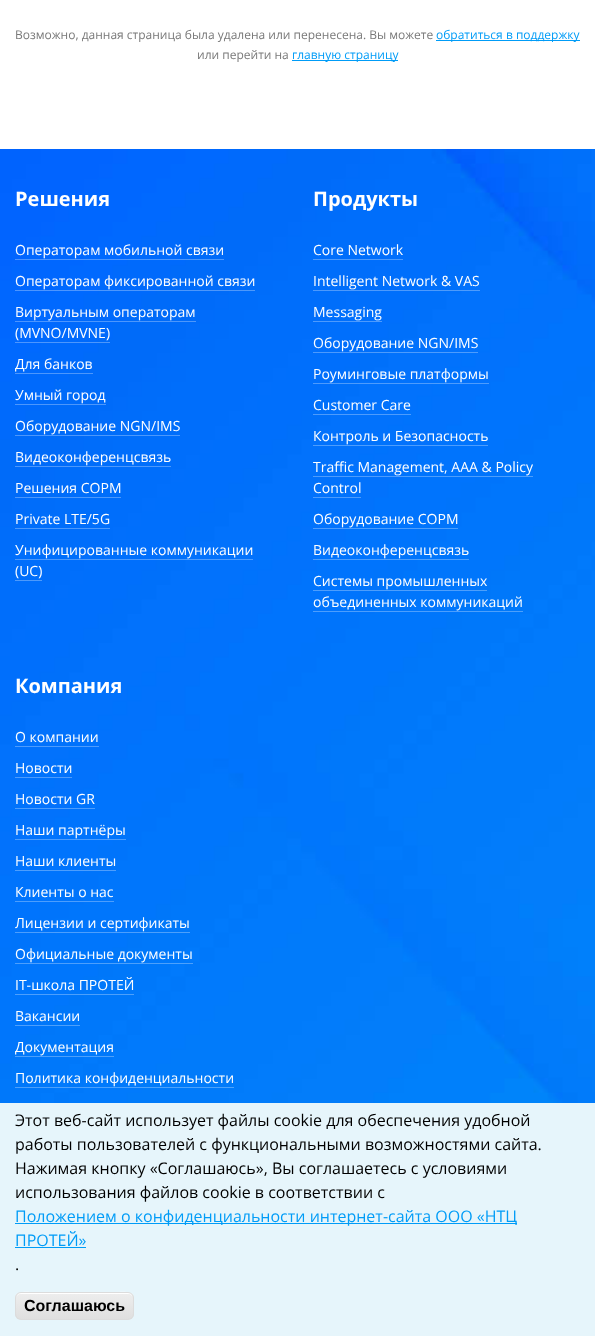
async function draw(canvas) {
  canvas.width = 595
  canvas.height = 1336
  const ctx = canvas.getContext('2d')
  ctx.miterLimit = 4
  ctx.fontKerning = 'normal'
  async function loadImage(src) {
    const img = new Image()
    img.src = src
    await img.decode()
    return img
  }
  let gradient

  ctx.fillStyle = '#fff'
  ctx.fillRect(0, 0, 595, 1336)
  ctx.font = '12px Open Sans'
  ctx.fillStyle = '#797979'
  ctx.fillText('Возможно, данная страница была удалена или перенесена. Вы можете', 15, 39)
  ctx.fillStyle = '#009cf7'
  ctx.fillRect(436, 40, 144, 1)
  ctx.fillText('обратиться в поддержку', 436, 39)
  ctx.fillStyle = '#797979'
  ctx.fillText('или перейти на', 197, 59)
  ctx.fillStyle = '#009cf7'
  ctx.fillRect(292, 60, 106, 1)
  ctx.fillText('главную страницу', 292, 59)
  ctx.drawImage(await loadImage('image0.png'), 0, 149, 595, 954)
  ctx.font = 'bold 20px Open Sans'
  ctx.fillStyle = '#fff'
  ctx.fillText('Решения', 15, 206)
  ctx.font = '14px Open Sans'
  ctx.fillText('Операторам мобильной связи', 15, 255)
  ctx.fillStyle = '#ffffff4d'
  ctx.fillRect(15, 259, 209, 1)
  ctx.fillStyle = '#fff'
  ctx.fillText('Операторам фиксированной связи', 15, 286)
  ctx.fillStyle = '#ffffff4d'
  ctx.fillRect(15, 290, 240, 1)
  ctx.fillStyle = '#fff'
  ctx.fillText('Виртуальным операторам', 15, 317)
  ctx.fillStyle = '#ffffff4d'
  ctx.fillRect(15, 321, 181, 1)
  ctx.fillStyle = '#fff'
  ctx.fillText('(MVNO/MVNE)', 15, 338)
  ctx.fillStyle = '#ffffff4d'
  ctx.fillRect(15, 342, 95, 1)
  ctx.fillStyle = '#fff'
  ctx.fillText('Для банков', 15, 369)
  ctx.fillStyle = '#ffffff4d'
  ctx.fillRect(15, 373, 78, 1)
  ctx.fillStyle = '#fff'
  ctx.fillText('Умный город', 15, 400)
  ctx.fillStyle = '#ffffff4d'
  ctx.fillRect(15, 404, 91, 1)
  ctx.fillStyle = '#fff'
  ctx.fillText('Оборудование NGN/IMS', 15, 431)
  ctx.fillStyle = '#ffffff4d'
  ctx.fillRect(15, 435, 165, 1)
  ctx.fillStyle = '#fff'
  ctx.fillText('Видеоконференцсвязь', 15, 462)
  ctx.fillStyle = '#ffffff4d'
  ctx.fillRect(15, 466, 156, 1)
  ctx.fillStyle = '#fff'
  ctx.fillText('Решения СОРМ', 15, 493)
  ctx.fillStyle = '#ffffff4d'
  ctx.fillRect(15, 497, 106, 1)
  ctx.fillStyle = '#fff'
  ctx.fillText('Private LTE/5G', 15, 524)
  ctx.fillStyle = '#4d99fc'
  ctx.fillRect(15, 528, 95, 1)
  ctx.fillStyle = '#fff'
  ctx.fillText('Унифицированные коммуникации', 15, 555)
  ctx.fillStyle = '#ffffff4d'
  ctx.fillRect(15, 559, 238, 1)
  ctx.fillStyle = '#fff'
  ctx.fillText('(UC)', 15, 576)
  ctx.fillStyle = '#4d9afc'
  ctx.fillRect(15, 580, 27, 1)
  ctx.font = 'bold 20px Open Sans'
  ctx.fillStyle = '#fff'
  ctx.fillText('Продукты', 313, 206)
  ctx.font = '14px Open Sans'
  ctx.fillText('Core Network', 313, 255)
  ctx.fillStyle = '#4d9afc'
  ctx.fillRect(313, 259, 90, 1)
  ctx.fillStyle = '#fff'
  ctx.fillText('Intelligent Network & VAS', 313, 286)
  ctx.fillStyle = '#ffffff4d'
  ctx.fillRect(313, 290, 167, 1)
  ctx.fillStyle = '#fff'
  ctx.fillText('Messaging', 313, 317)
  ctx.fillStyle = '#4d9afd'
  ctx.fillRect(313, 321, 69, 1)
  ctx.fillStyle = '#fff'
  ctx.fillText('Оборудование NGN/IMS', 313, 348)
  ctx.fillStyle = '#ffffff4d'
  ctx.fillRect(313, 352, 165, 1)
  ctx.fillStyle = '#fff'
  ctx.fillText('Роуминговые платформы', 313, 379)
  ctx.fillStyle = '#ffffff4d'
  ctx.fillRect(313, 383, 176, 1)
  ctx.fillStyle = '#fff'
  ctx.fillText('Customer Care', 313, 410)
  ctx.fillStyle = '#ffffff4d'
  ctx.fillRect(313, 414, 98, 1)
  ctx.fillStyle = '#fff'
  ctx.fillText('Контроль и Безопасность', 313, 441)
  ctx.fillStyle = '#4d9dfd'
  ctx.fillRect(313, 445, 175, 1)
  ctx.fillStyle = '#fff'
  ctx.fillText('Traffic Management, AAA & Policy', 313, 472)
  ctx.fillStyle = '#ffffff4d'
  ctx.fillRect(313, 476, 220, 1)
  ctx.fillStyle = '#fff'
  ctx.fillText('Control', 313, 493)
  ctx.fillStyle = '#4d9cfd'
  ctx.fillRect(313, 497, 48, 1)
  ctx.fillStyle = '#fff'
  ctx.fillText('Оборудование СОРМ', 313, 524)
  ctx.fillStyle = '#ffffff4d'
  ctx.fillRect(313, 528, 145, 1)
  ctx.fillStyle = '#fff'
  ctx.fillText('Видеоконференцсвязь', 313, 555)
  ctx.fillStyle = '#ffffff4d'
  ctx.fillRect(313, 559, 156, 1)
  ctx.fillStyle = '#fff'
  ctx.fillText('Системы промышленных', 313, 586)
  ctx.fillStyle = '#ffffff4d'
  ctx.fillRect(313, 590, 174, 1)
  ctx.fillStyle = '#fff'
  ctx.fillText('объединенных коммуникаций', 313, 607)
  ctx.fillStyle = '#ffffff4d'
  ctx.fillRect(313, 611, 210, 1)
  ctx.font = 'bold 20px Open Sans'
  ctx.fillStyle = '#fff'
  ctx.fillText('Компания', 15, 693)
  ctx.font = '14px Open Sans'
  ctx.fillText('О компании', 15, 742)
  ctx.fillStyle = '#4e9cfd'
  ctx.fillRect(15, 746, 84, 1)
  ctx.fillStyle = '#fff'
  ctx.fillText('Новости', 15, 773)
  ctx.fillStyle = '#4e9cfd'
  ctx.fillRect(15, 777, 57, 1)
  ctx.fillStyle = '#fff'
  ctx.fillText('Новости GR', 15, 804)
  ctx.fillStyle = '#4d9dfd'
  ctx.fillRect(15, 808, 80, 1)
  ctx.fillStyle = '#fff'
  ctx.fillText('Наши партнёры', 15, 835)
  ctx.fillStyle = '#4d9dfd'
  ctx.fillRect(15, 839, 111, 1)
  ctx.fillStyle = '#fff'
  ctx.fillText('Наши клиенты', 15, 866)
  ctx.fillStyle = '#4d9efd'
  ctx.fillRect(15, 870, 101, 1)
  ctx.fillStyle = '#fff'
  ctx.fillText('Клиенты о нас', 15, 897)
  ctx.fillStyle = '#4d9efd'
  ctx.fillRect(15, 901, 99, 1)
  ctx.fillStyle = '#fff'
  ctx.fillText('Лицензии и сертификаты', 15, 928)
  ctx.fillStyle = '#ffffff4d'
  ctx.fillRect(15, 932, 175, 1)
  ctx.fillStyle = '#fff'
  ctx.fillText('Официальные документы', 15, 959)
  ctx.fillStyle = '#ffffff4d'
  ctx.fillRect(15, 963, 178, 1)
  ctx.fillStyle = '#fff'
  ctx.fillText('IT-школа ПРОТЕЙ', 15, 990)
  ctx.fillStyle = '#ffffff4d'
  ctx.fillRect(15, 994, 119, 1)
  ctx.fillStyle = '#fff'
  ctx.fillText('Вакансии', 15, 1021)
  ctx.fillStyle = '#ffffff4d'
  ctx.fillRect(15, 1025, 65, 1)
  ctx.fillStyle = '#fff'
  ctx.fillText('Документация', 15, 1052)
  ctx.fillStyle = '#ffffff4d'
  ctx.fillRect(15, 1056, 99, 1)
  ctx.fillStyle = '#fff'
  ctx.fillText('Политика конфиденциальности', 15, 1083)
  ctx.fillStyle = '#ffffff4d'
  ctx.fillRect(15, 1087, 219, 1)
  ctx.fillStyle = '#e6f5fb'
  ctx.fillRect(0, 1103, 595, 233)
  ctx.font = '16px Open Sans'
  ctx.fillStyle = '#000'
  ctx.fillText('Этот веб-сайт использует файлы cookie для обеспечения удобной', 15, 1126)
  ctx.fillText('работы пользователей с функциональными возможностями сайта.', 15, 1150)
  ctx.fillText('Нажимая кнопку «Соглашаюсь», Вы соглашаетесь с условиями', 15, 1174)
  ctx.fillText('использования файлов cookie в соответствии с', 15, 1198)
  ctx.fillStyle = '#009cf7'
  ctx.fillRect(15, 1223, 502, 1)
  ctx.fillText('Положением о конфиденциальности интернет-сайта ООО «НТЦ', 15, 1222)
  ctx.fillText('ПРОТЕЙ»', 15, 1246)
  ctx.fillRect(15, 1247, 71, 1)
  ctx.fillStyle = '#000'
  ctx.fillText('.', 15, 1270)
  ctx.save()
  ctx.beginPath()
  ctx.roundRect(15, 1292, 119, 28, 6)
  ctx.clip()
  gradient = ctx.createLinearGradient(75, 1293, 75, 1319)
  gradient.addColorStop(0.05, '#ededed')
  gradient.addColorStop(1, '#dfdfdf')
  ctx.fillStyle = gradient
  ctx.fillRect(15, 1293, 119, 26)
  ctx.restore()
  ctx.fillStyle = '#fff'
  ctx.beginPath()
  ctx.moveTo(21, 1294)
  ctx.lineTo(128, 1294)
  ctx.bezierCurveTo(131, 1294, 133, 1296, 133, 1299)
  ctx.bezierCurveTo(133, 1288, 115, 1293, 110, 1293)
  ctx.lineTo(39, 1293)
  ctx.bezierCurveTo(34, 1293, 16, 1288, 16, 1299)
  ctx.bezierCurveTo(16, 1296, 18, 1294, 21, 1294)
  ctx.closePath()
  ctx.fill()
  ctx.beginPath()
  ctx.roundRect(15.5, 1292.5, 118, 27, 5.5)
  ctx.strokeStyle = '#dcdcdc'
  ctx.stroke()
  ctx.font = 'bold 16px Liberation Sans'
  ctx.fillStyle = '#000'
  ctx.fillText('Соглашаюсь', 24, 1311)
}

draw(document.querySelector('canvas'))
